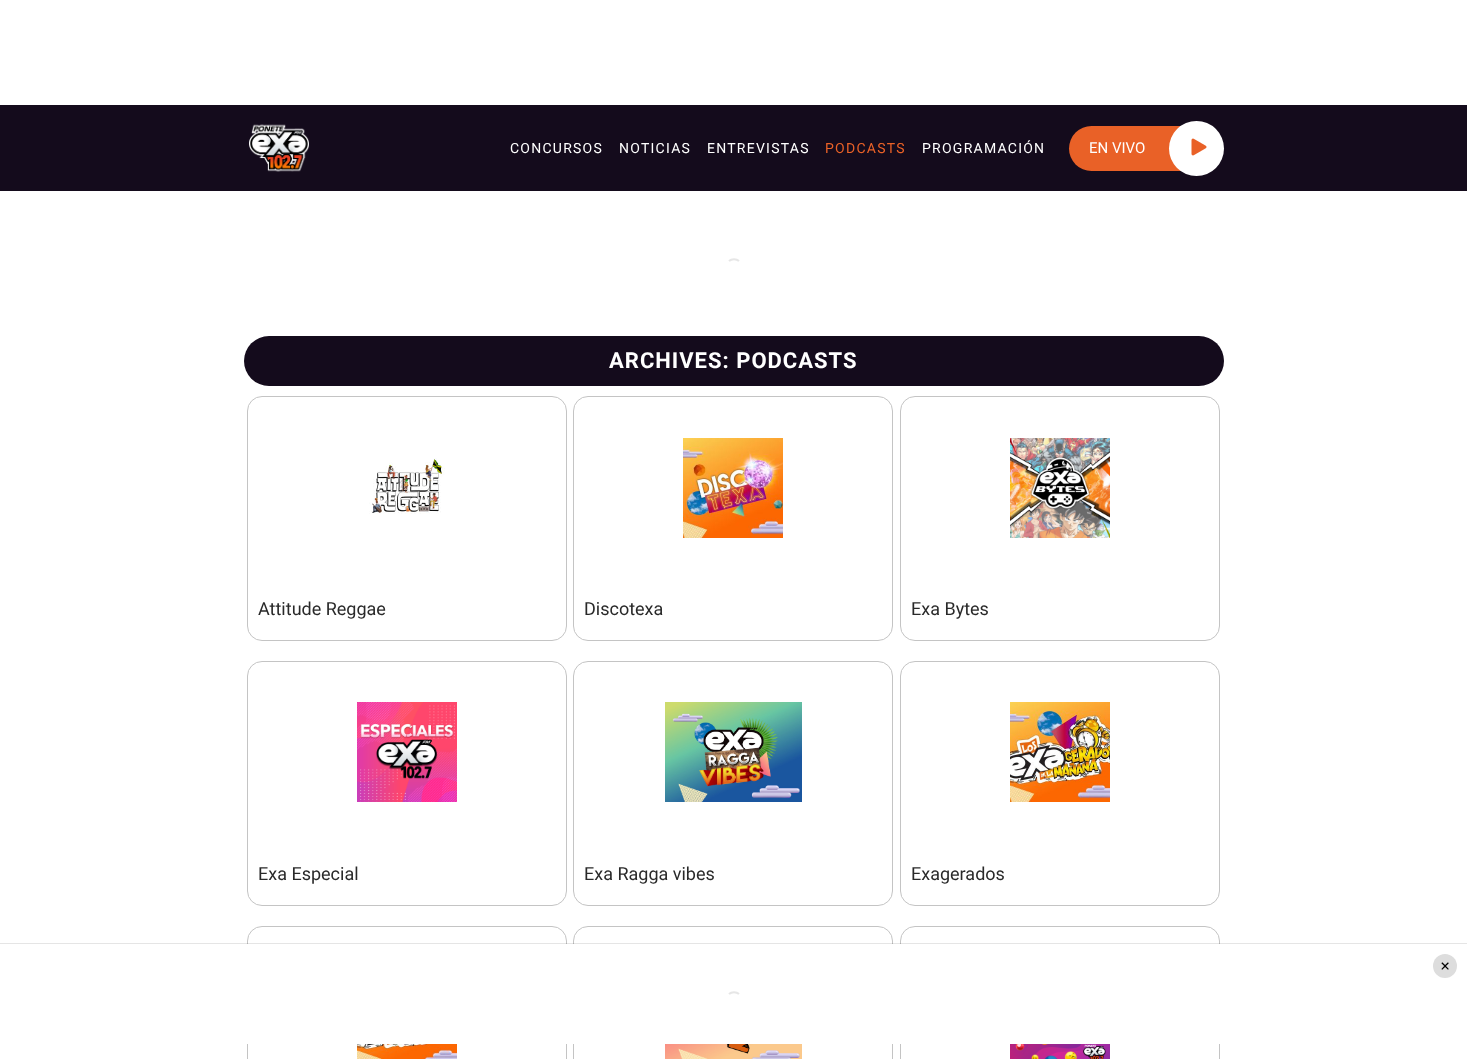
async function draw(canvas) {
  canvas.width = 1467
  canvas.height = 1059
  const ctx = canvas.getContext('2d')
  ctx.miterLimit = 4
  ctx.fontKerning = 'normal'
  async function loadImage(src) {
    const img = new Image()
    img.src = src
    await img.decode()
    return img
  }

  ctx.fillStyle = '#fff'
  ctx.fillRect(0, 0, 1467, 1059)
  ctx.fillStyle = '#140b1c'
  ctx.fillRect(0, 105, 1467, 86)
  ctx.drawImage(await loadImage('image0.png'), 249, 124, 60, 48)
  ctx.letterSpacing = '1.25px'
  ctx.font = '14px Roboto'
  ctx.fillStyle = '#fff'
  ctx.fillText('CONCURSOS', 510, 153)
  ctx.fillText('NOTICIAS', 619, 153)
  ctx.fillText('ENTREVISTAS', 707, 153)
  ctx.fillStyle = '#e96127'
  ctx.fillText('PODCASTS', 825, 153)
  ctx.fillStyle = '#fff'
  ctx.fillText('PROGRAMACIÓN', 922, 153)
  ctx.fillStyle = '#e96127'
  ctx.beginPath()
  ctx.roundRect(1069, 126, 150, 45, 22.5)
  ctx.fill()
  ctx.letterSpacing = '0px'
  ctx.font = '15px Roboto'
  ctx.fillStyle = '#fff'
  ctx.fillText('EN VIVO', 1089, 153)
  ctx.beginPath()
  ctx.arc(1196.5, 148.5, 27.5, 0, 2 * Math.PI)
  ctx.fill()
  ctx.drawImage(await loadImage('image1.png'), 1191, 138, 16, 18)
  ctx.beginPath()
  ctx.moveTo(729, 261)
  ctx.bezierCurveTo(731.5, 258.5, 736.5, 258.5, 739, 261)
  ctx.strokeStyle = '#e6e6e6'
  ctx.lineWidth = 2
  ctx.stroke()
  ctx.fillStyle = '#140b1c'
  ctx.beginPath()
  ctx.roundRect(244, 336, 980, 50, 25)
  ctx.fill()
  ctx.letterSpacing = '1px'
  ctx.font = 'bold 22px Roboto'
  ctx.fillStyle = '#fff'
  ctx.fillText('ARCHIVES: PODCASTS', 609, 368)
  ctx.beginPath()
  ctx.roundRect(247.5, 396.5, 319, 244, 14.5)
  ctx.strokeStyle = '#c4c4c4'
  ctx.lineWidth = 1
  ctx.stroke()
  ctx.drawImage(await loadImage('image2.png'), 369, 458, 76, 56)
  ctx.letterSpacing = '0px'
  ctx.font = '18px Roboto'
  ctx.fillStyle = '#292929'
  ctx.fillText('Attitude Reggae', 258, 615)
  ctx.beginPath()
  ctx.roundRect(573.5, 396.5, 319, 244, 14.5)
  ctx.stroke()
  ctx.drawImage(await loadImage('image3.png'), 683, 438, 100, 100)
  ctx.fillText('Discotexa', 584, 615)
  ctx.beginPath()
  ctx.roundRect(900.5, 396.5, 319, 244, 14.5)
  ctx.stroke()
  ctx.drawImage(await loadImage('image4.png'), 1010, 438, 100, 100)
  ctx.fillText('Exa Bytes', 911, 615)
  ctx.beginPath()
  ctx.roundRect(247.5, 661.5, 319, 244, 14.5)
  ctx.stroke()
  ctx.drawImage(await loadImage('image5.png'), 357, 702, 100, 100)
  ctx.fillText('Exa Especial', 258, 880)
  ctx.beginPath()
  ctx.roundRect(573.5, 661.5, 319, 244, 14.5)
  ctx.stroke()
  ctx.drawImage(await loadImage('image6.png'), 665, 702, 137, 100)
  ctx.fillText('Exa Ragga vibes', 584, 880)
  ctx.beginPath()
  ctx.roundRect(900.5, 661.5, 319, 244, 14.5)
  ctx.stroke()
  ctx.drawImage(await loadImage('image7.png'), 1010, 702, 100, 100)
  ctx.fillText('Exagerados', 911, 880)
  ctx.beginPath()
  ctx.roundRect(247.5, 926.5, 319, 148, 14.5)
  ctx.stroke()
  ctx.drawImage(await loadImage('image8.png'), 357, 1044, 100, 15)
  ctx.beginPath()
  ctx.roundRect(573.5, 926.5, 319, 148, 14.5)
  ctx.stroke()
  ctx.drawImage(await loadImage('image9.png'), 665, 1044, 137, 15)
  ctx.beginPath()
  ctx.roundRect(900.5, 926.5, 319, 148, 14.5)
  ctx.stroke()
  ctx.drawImage(await loadImage('image10.png'), 1010, 1044, 100, 15)
  ctx.fillStyle = '#0000001a'
  ctx.fillRect(0, 943, 1467, 1)
  ctx.fillStyle = '#fff'
  ctx.fillRect(247, 944, 973, 100)
  ctx.fillStyle = '#ddd'
  ctx.beginPath()
  ctx.arc(1445, 966, 12, 0, 2 * Math.PI)
  ctx.fill()
  ctx.font = 'bold 18px Liberation Serif'
  ctx.fillStyle = '#000'
  ctx.fillText('×', 1440, 972)
  ctx.beginPath()
  ctx.moveTo(729, 994)
  ctx.bezierCurveTo(731.5, 991.5, 736.5, 991.5, 739, 994)
  ctx.strokeStyle = '#e6e6e6'
  ctx.lineWidth = 2
  ctx.stroke()
}

draw(document.querySelector('canvas'))
